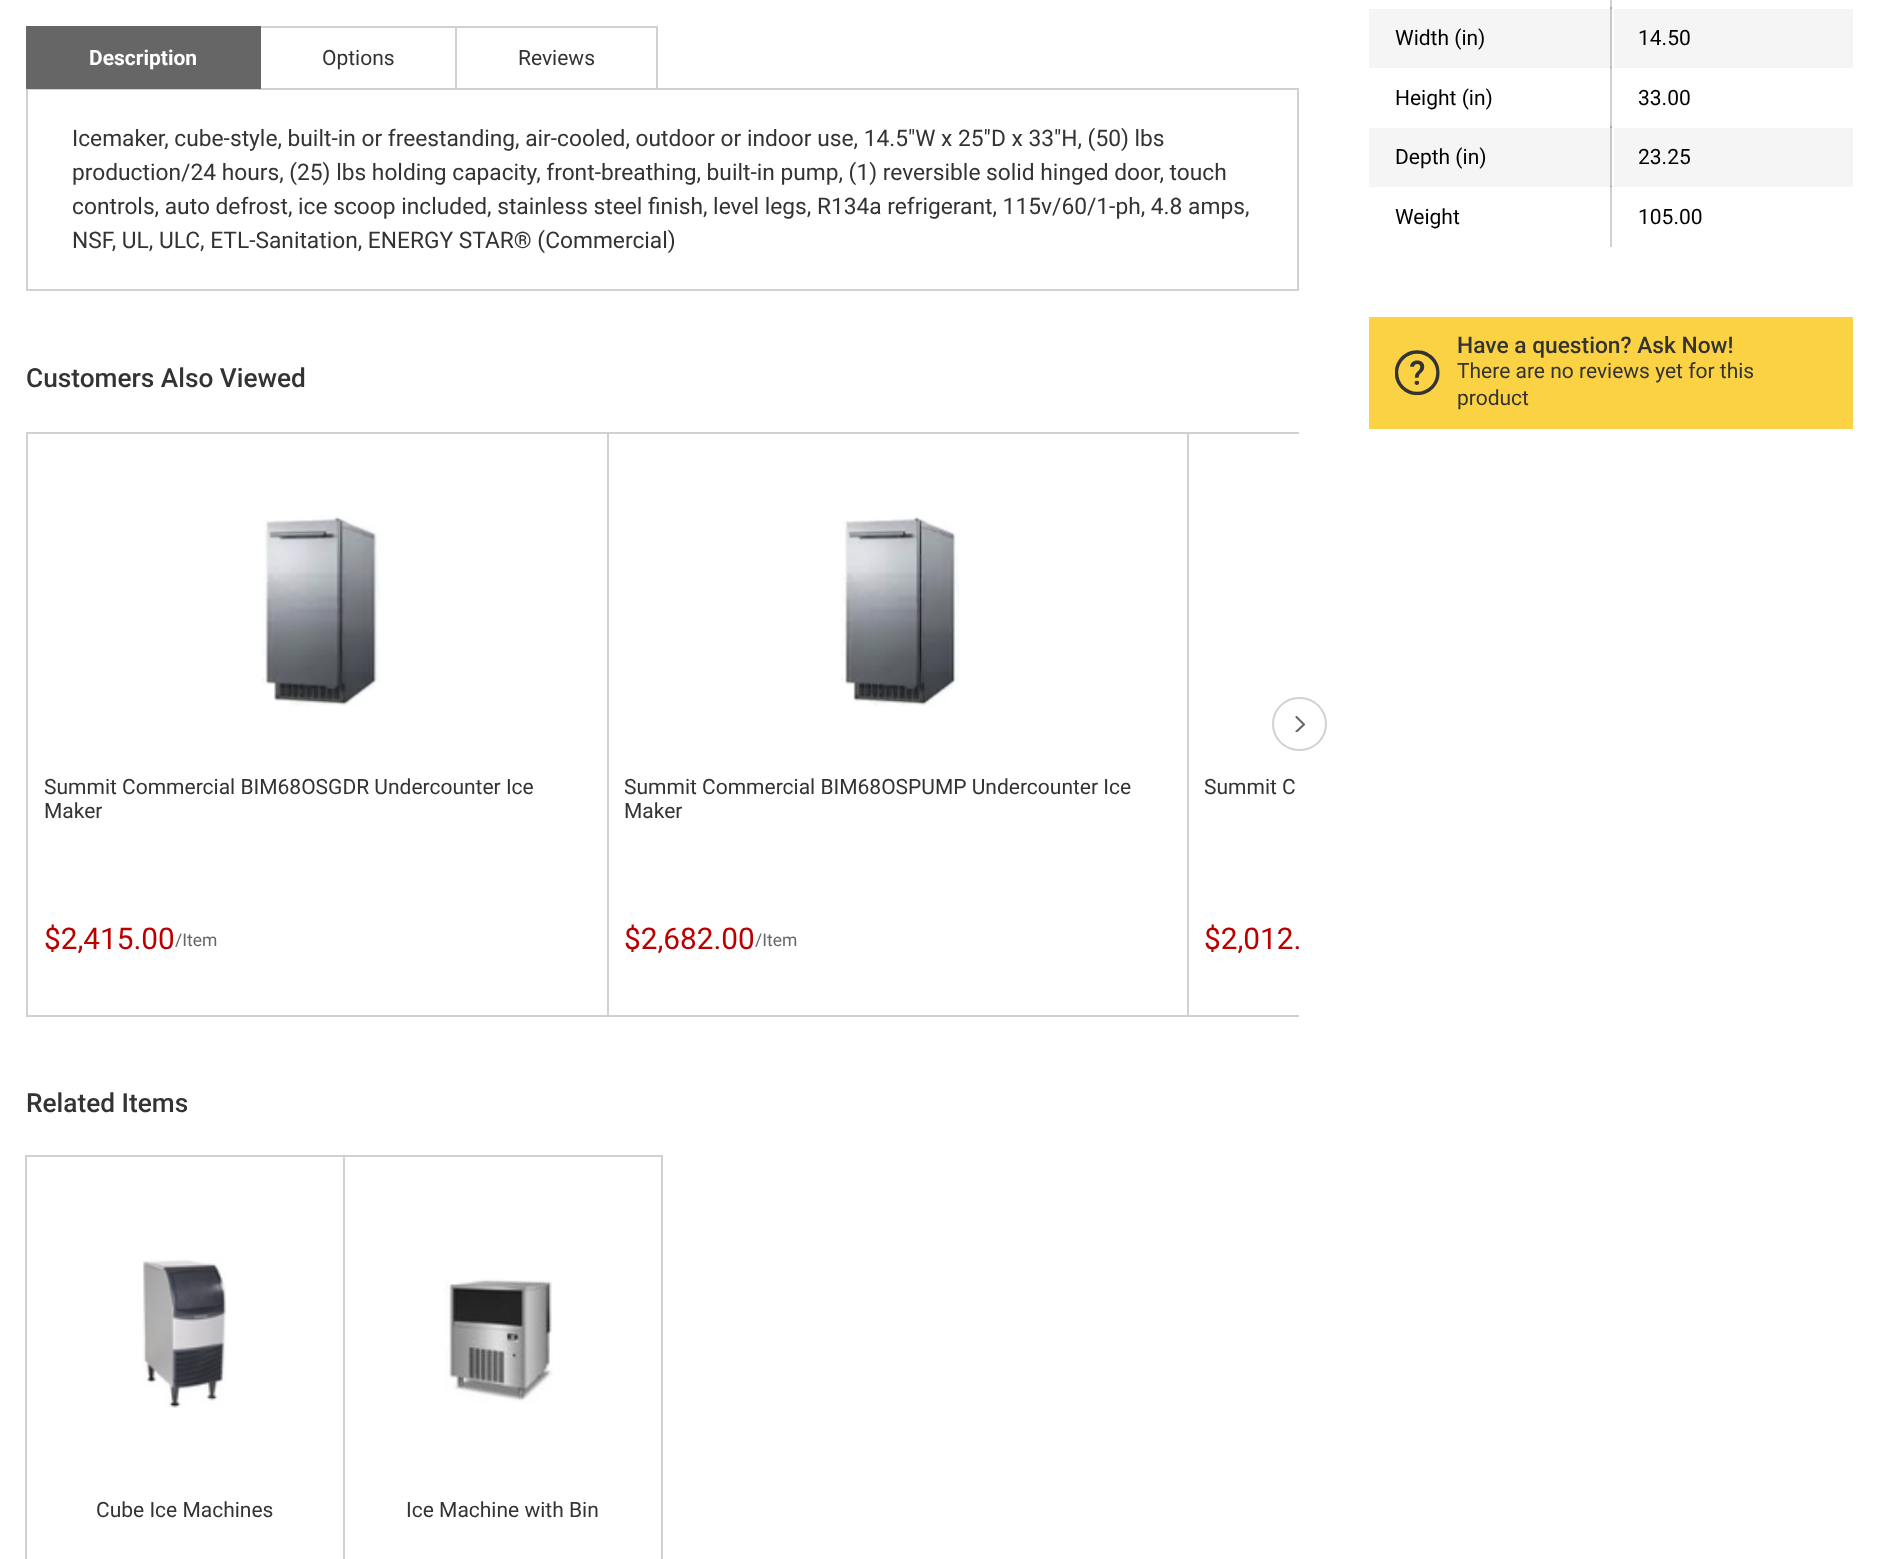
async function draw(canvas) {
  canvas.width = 1879
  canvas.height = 1559
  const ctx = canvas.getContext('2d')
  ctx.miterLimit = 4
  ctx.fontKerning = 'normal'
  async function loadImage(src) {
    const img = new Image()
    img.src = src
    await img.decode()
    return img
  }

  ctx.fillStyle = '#fff'
  ctx.fillRect(0, 0, 1879, 1559)
  ctx.fillStyle = '#d1d1d1'
  ctx.fillRect(1610, 0, 2, 9)
  ctx.fillStyle = '#ababab'
  ctx.fillRect(1610, 7, 2, 2)
  ctx.fillStyle = '#d1d1d1'
  ctx.fillRect(1610, 67, 2, 61)
  ctx.fillStyle = '#ababab'
  ctx.fillRect(1610, 126, 2, 2)
  ctx.fillStyle = '#d1d1d1'
  ctx.fillRect(1610, 186, 2, 61)
  ctx.strokeStyle = '#d1d1d1'
  ctx.lineWidth = 2
  ctx.strokeRect(27, 89, 1271, 201)
  ctx.fillStyle = '#666'
  ctx.fillRect(26, 26, 235, 63)
  ctx.font = 'bold 21px Roboto'
  ctx.fillStyle = '#fff'
  ctx.fillText('Description', 89, 65)
  ctx.fillStyle = '#d1d1d1'
  ctx.fillRect(261, 26, 397, 2)
  ctx.fillRect(455, 26, 2, 63)
  ctx.font = '21px Roboto'
  ctx.fillStyle = '#333'
  ctx.fillText('Options', 322, 65)
  ctx.fillStyle = '#d1d1d1'
  ctx.fillRect(656, 26, 2, 63)
  ctx.fillStyle = '#333'
  ctx.fillText('Reviews', 518, 65)
  ctx.font = '22.75px Roboto'
  ctx.fillText('Icemaker, cube-style, built-in or freestanding, air-cooled, outdoor or indoor use, 14.5"W x 25"D x 33"H, (50) lbs', 72, 146)
  ctx.fillText('production/24 hours, (25) lbs holding capacity, front-breathing, built-in pump, (1) reversible solid hinged door, touch', 72, 180)
  ctx.fillText('controls, auto defrost, ice scoop included, stainless steel finish, level legs, R134a refrigerant, 115v/60/1-ph, 4.8 amps,', 72, 214)
  ctx.fillText('NSF, UL, ULC, ETL-Sanitation, ENERGY STAR® (Commercial)', 72, 248)
  ctx.font = '500 26.25px Roboto'
  ctx.fillText('Customers Also Viewed', 26, 387)
  ctx.save()
  ctx.beginPath()
  ctx.rect(1295, 716, 11, 16)
  ctx.clip()
  ctx.beginPath()
  ctx.moveTo(1296.5, 717)
  ctx.lineTo(1304, 724.5)
  ctx.lineTo(1296.5, 731.5)
  ctx.strokeStyle = '#666'
  ctx.lineWidth = 2.1
  ctx.lineCap = 'round'
  ctx.lineJoin = 'round'
  ctx.stroke()
  ctx.restore()
  ctx.beginPath()
  ctx.roundRect(1273, 698, 53, 52, 26)
  ctx.stroke()
  ctx.fillStyle = '#d1d1d1'
  ctx.fillRect(26, 432, 1273, 2)
  ctx.fillRect(26, 1015, 1273, 2)
  ctx.fillRect(26, 434, 2, 581)
  ctx.drawImage(await loadImage('image0.png'), 262, 515, 119, 191)
  ctx.font = '21px Roboto'
  ctx.fillStyle = '#333'
  ctx.fillText('Summit Commercial BIM68OSGDR Undercounter Ice', 44, 794)
  ctx.fillText('Maker', 44, 818)
  ctx.font = '29.75px Roboto'
  ctx.fillStyle = '#b00'
  ctx.fillText('$2,415.00', 44, 949)
  ctx.font = '17.5px Roboto'
  ctx.fillStyle = '#666'
  ctx.fillText('/Item', 175, 946)
  ctx.fillStyle = '#d1d1d1'
  ctx.fillRect(607, 434, 2, 581)
  ctx.drawImage(await loadImage('image1.png'), 841, 515, 119, 191)
  ctx.font = '21px Roboto'
  ctx.fillStyle = '#333'
  ctx.fillText('Summit Commercial BIM68OSPUMP Undercounter Ice', 624, 794)
  ctx.fillText('Maker', 624, 818)
  ctx.font = '29.75px Roboto'
  ctx.fillStyle = '#b00'
  ctx.fillText('$2,682.00', 624, 949)
  ctx.font = '17.5px Roboto'
  ctx.fillStyle = '#666'
  ctx.fillText('/Item', 755, 946)
  ctx.fillStyle = '#d1d1d1'
  ctx.fillRect(1187, 434, 2, 581)
  ctx.font = '21px Roboto'
  ctx.fillStyle = '#333'
  ctx.fillText('Summit C', 1204, 794)
  ctx.font = '29.75px Roboto'
  ctx.fillStyle = '#b00'
  ctx.fillText('$2,012.', 1204, 949)
  ctx.font = '500 26.25px Roboto'
  ctx.fillStyle = '#333'
  ctx.fillText('Related Items', 26, 1112)
  ctx.strokeRect(26, 1156, 318, 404)
  ctx.drawImage(await loadImage('image2.png'), 142, 1259, 85, 149)
  ctx.font = '21px Roboto'
  ctx.fillText('Cube Ice Machines', 96, 1517)
  ctx.strokeRect(344, 1156, 318, 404)
  ctx.drawImage(await loadImage('image3.png'), 443, 1279, 110, 124)
  ctx.fillText('Ice Machine with Bin', 406, 1517)
  ctx.fillStyle = '#f5f5f5'
  ctx.fillRect(1369, 9, 241, 59)
  ctx.fillStyle = '#c9c9c9'
  ctx.fillRect(1610, 9, 2, 59)
  ctx.fillStyle = '#a5a5a5'
  ctx.fillRect(1610, 67, 2, 1)
  ctx.fillStyle = '#000'
  ctx.fillText('Width (in)', 1395, 45)
  ctx.fillStyle = '#f5f5f5'
  ctx.fillRect(1614, 9, 239, 59)
  ctx.fillStyle = '#000'
  ctx.fillText('14.50', 1638, 45)
  ctx.fillText('Height (in)', 1395, 105)
  ctx.fillText('33.00', 1638, 105)
  ctx.fillStyle = '#f5f5f5'
  ctx.fillRect(1369, 128, 241, 59)
  ctx.fillStyle = '#c9c9c9'
  ctx.fillRect(1610, 128, 2, 59)
  ctx.fillStyle = '#a5a5a5'
  ctx.fillRect(1610, 186, 2, 1)
  ctx.fillStyle = '#000'
  ctx.fillText('Depth (in)', 1395, 164)
  ctx.fillStyle = '#f5f5f5'
  ctx.fillRect(1614, 128, 239, 59)
  ctx.fillStyle = '#000'
  ctx.fillText('23.25', 1638, 164)
  ctx.fillText('Weight', 1395, 224)
  ctx.fillText('105.00', 1638, 224)
  ctx.fillStyle = '#fbd243'
  ctx.fillRect(1369, 317, 484, 112)
  ctx.drawImage(await loadImage('image4.png'), 1395, 350, 45, 46)
  ctx.font = '500 22.75px Roboto'
  ctx.fillStyle = '#333'
  ctx.fillText('Have a question? Ask Now!', 1457, 353)
  ctx.font = '21px Roboto'
  ctx.fillText('There are no reviews yet for this', 1457, 378)
  ctx.fillText('product', 1457, 405)
}

draw(document.querySelector('canvas'))
